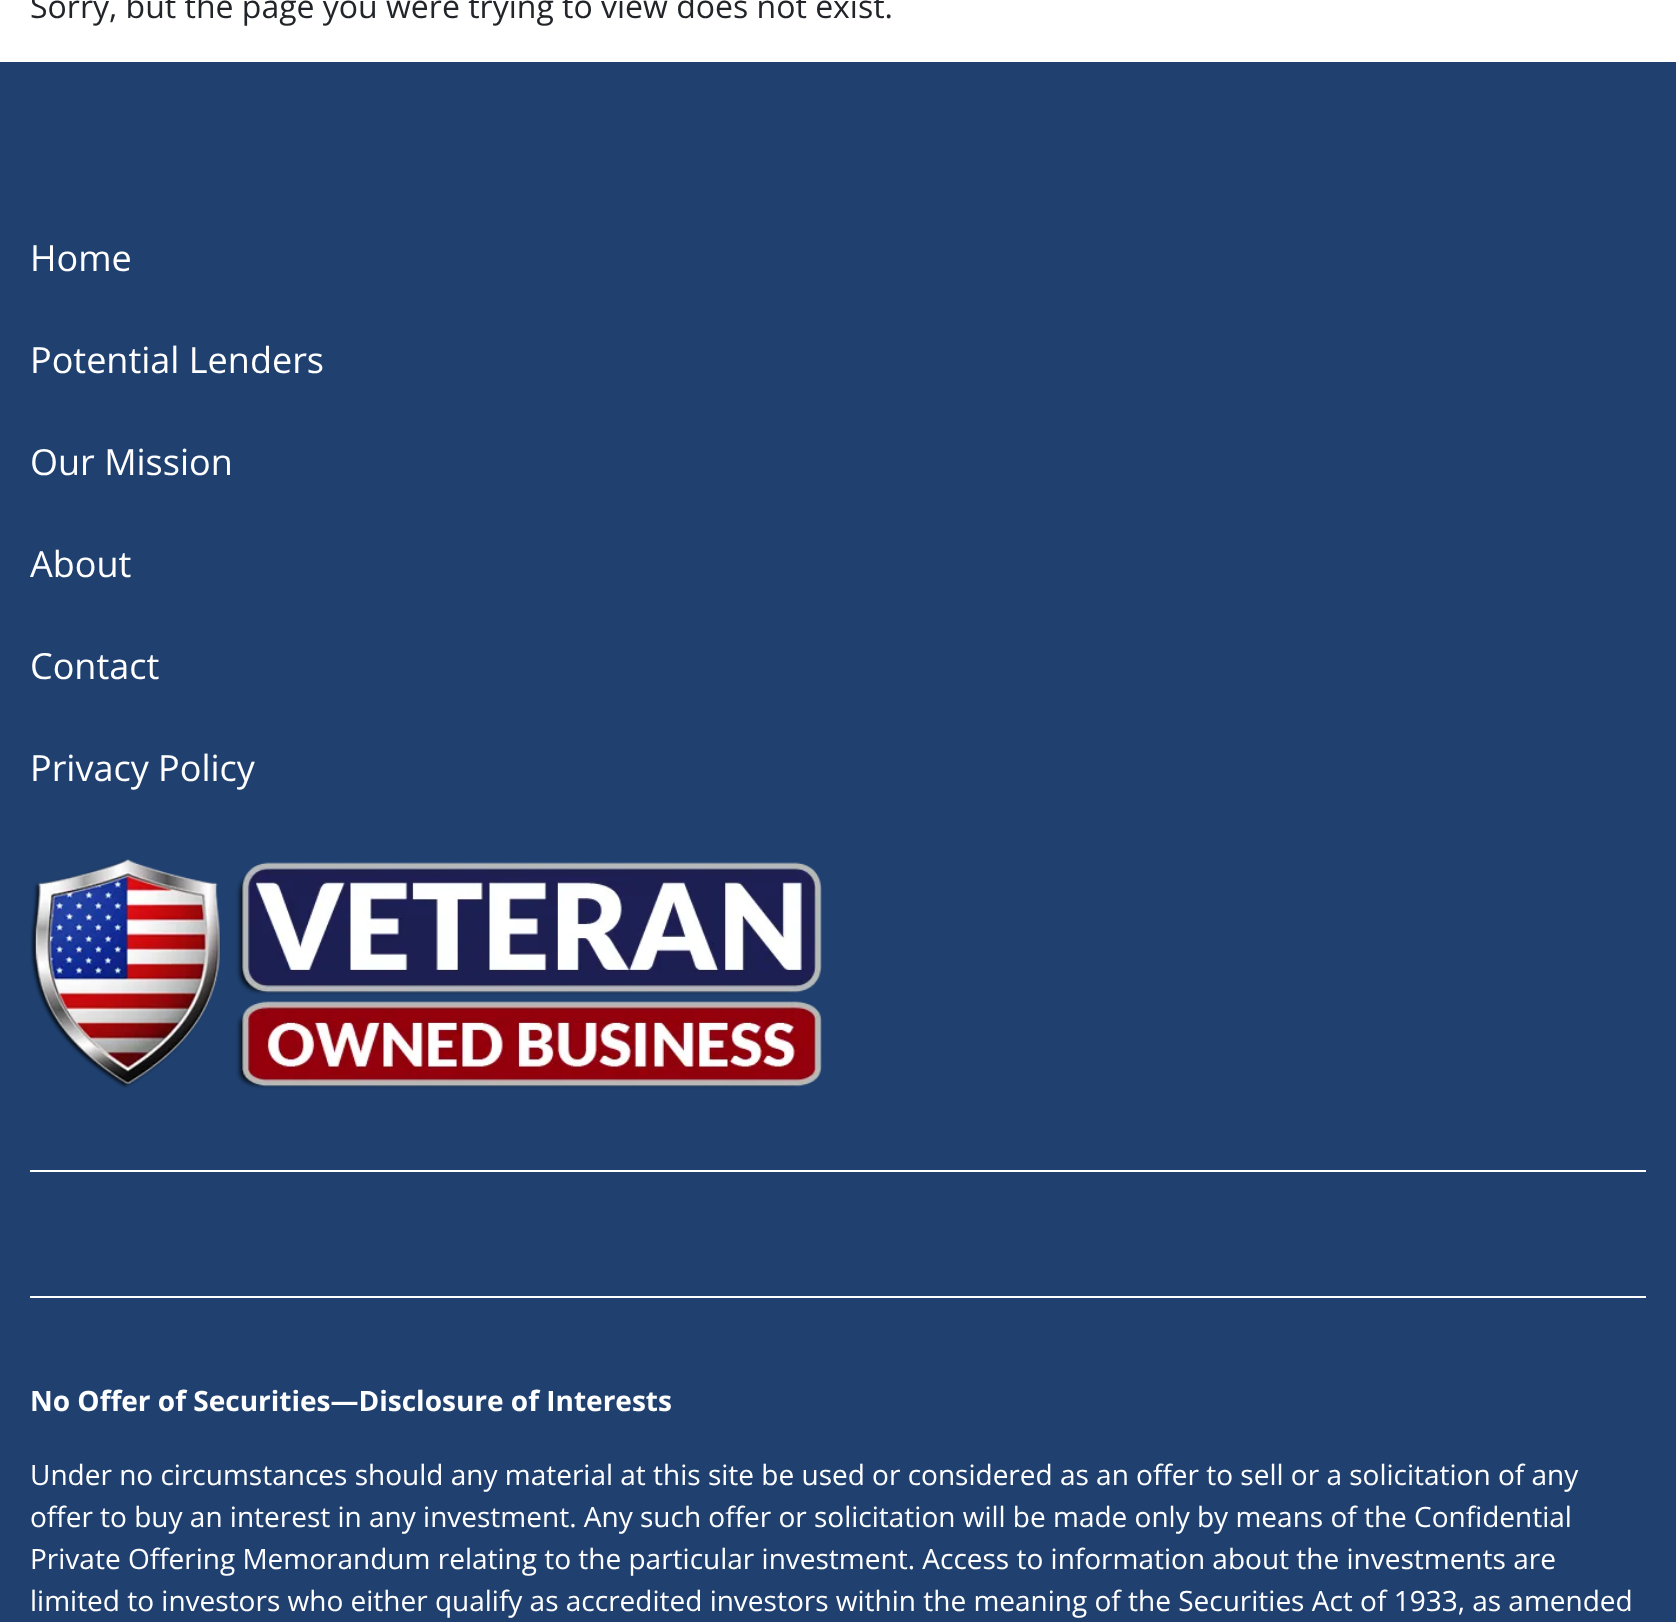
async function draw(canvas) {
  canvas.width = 1676
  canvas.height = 1622
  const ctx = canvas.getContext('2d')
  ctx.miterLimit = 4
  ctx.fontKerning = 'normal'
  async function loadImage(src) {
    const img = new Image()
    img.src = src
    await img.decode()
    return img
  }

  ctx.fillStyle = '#fff'
  ctx.fillRect(0, 0, 1676, 1622)
  ctx.font = '32px Open Sans'
  ctx.fillStyle = '#212529'
  ctx.fillText('Sorry, but the page you were trying to view does not exist.', 30, 18)
  ctx.fillStyle = '#204170'
  ctx.fillRect(0, 62, 1676, 1560)
  ctx.font = '36px Open Sans'
  ctx.fillStyle = '#fff'
  ctx.fillText('Home', 30, 271)
  ctx.fillText('Potential Lenders', 30, 373)
  ctx.fillText('Our Mission', 30, 475)
  ctx.fillText('About', 30, 577)
  ctx.fillText('Contact', 30, 679)
  ctx.fillText('Privacy Policy', 30, 781)
  ctx.drawImage(await loadImage('image0.png'), 30, 859, 792, 230)
  ctx.fillRect(30, 1170, 1616, 2)
  ctx.fillRect(30, 1296, 1616, 2)
  ctx.font = 'bold 28px Open Sans'
  ctx.fillText('No Offer of Securities—Disclosure of Interests', 30, 1411)
  ctx.font = '28px Open Sans'
  ctx.fillText('Under no circumstances should any material at this site be used or considered as an offer to sell or a solicitation of any', 30, 1485)
  ctx.fillText('offer to buy an interest in any investment. Any such offer or solicitation will be made only by means of the Confidential', 30, 1527)
  ctx.fillText('Private Offering Memorandum relating to the particular investment. Access to information about the investments are', 30, 1569)
  ctx.fillText('limited to investors who either qualify as accredited investors within the meaning of the Securities Act of 1933, as amended', 30, 1611)
}

draw(document.querySelector('canvas'))
